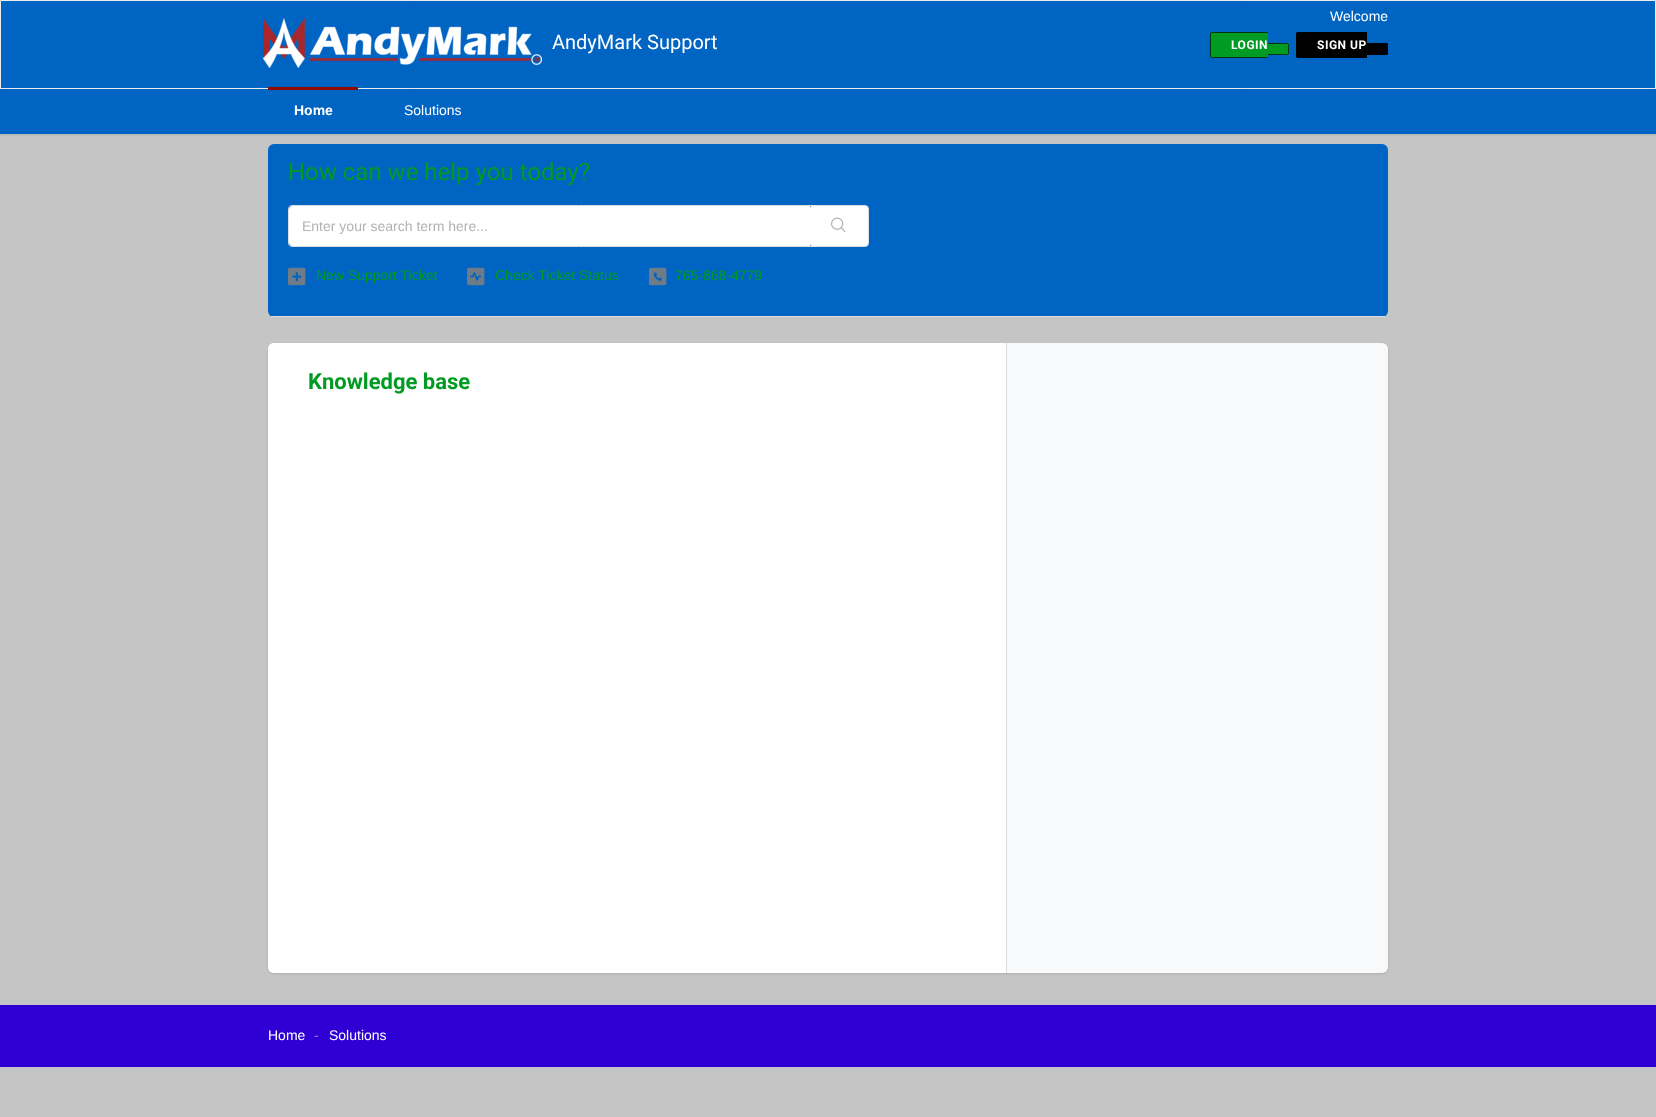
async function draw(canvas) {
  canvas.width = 1656
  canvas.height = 1117
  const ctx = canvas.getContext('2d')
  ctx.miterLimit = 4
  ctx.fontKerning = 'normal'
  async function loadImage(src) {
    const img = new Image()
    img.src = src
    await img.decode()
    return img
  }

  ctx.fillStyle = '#c5c5c5'
  ctx.fillRect(0, 0, 1656, 1117)
  ctx.fillStyle = '#0064c3'
  ctx.beginPath()
  ctx.rect(0.5, 0.5, 1655, 88)
  ctx.fill()
  ctx.strokeStyle = '#ebeef0'
  ctx.stroke()
  ctx.drawImage(await loadImage('image0.png'), 263, 18, 279, 50)
  ctx.font = '20px Roboto'
  ctx.fillStyle = '#fff'
  ctx.fillText('AndyMark Support', 552, 49)
  ctx.font = '14px Liberation Sans'
  ctx.fillText('Welcome', 1330, 21)
  ctx.fillStyle = '#009b22'
  ctx.beginPath()
  ctx.roundRect(1210, 32, 58, 26, [2, 0, 0, 2])
  ctx.fill()
  ctx.letterSpacing = '0.5px'
  ctx.font = 'bold 12px Roboto'
  ctx.fillStyle = '#fff'
  ctx.fillText('LOGIN', 1231, 49)
  ctx.fillStyle = '#00350c'
  ctx.fillRect(1211, 32, 57, 1)
  ctx.fillRect(1211, 57, 57, 1)
  ctx.fillRect(1210, 33, 1, 24)
  ctx.fillStyle = '#009b22'
  ctx.beginPath()
  ctx.roundRect(1268, 43, 21, 12, [0, 2, 2, 0])
  ctx.fill()
  ctx.fillStyle = '#00350c'
  ctx.fillRect(1268, 43, 20, 1)
  ctx.fillRect(1288, 44, 1, 10)
  ctx.fillRect(1268, 54, 20, 1)
  ctx.fillStyle = '#000'
  ctx.beginPath()
  ctx.roundRect(1296, 32, 71, 26, [2, 0, 0, 2])
  ctx.fill()
  ctx.fillStyle = '#fff'
  ctx.fillText('SIGN UP', 1317, 49)
  ctx.fillStyle = '#000'
  ctx.fillRect(1297, 32, 1, 1)
  ctx.fillRect(1297, 57, 1, 1)
  ctx.fillRect(1296, 33, 1, 24)
  ctx.beginPath()
  ctx.roundRect(1367, 43, 21, 12, [0, 2, 2, 0])
  ctx.fill()
  ctx.fillRect(1386, 43, 1, 1)
  ctx.fillRect(1387, 44, 1, 10)
  ctx.fillRect(1386, 54, 1, 1)
  ctx.fillStyle = '#3f3f4426'
  ctx.filter = 'blur(1px)'
  ctx.beginPath()
  ctx.rect(0, 90, 1656, 45)
  ctx.fill()
  ctx.filter = 'none'
  ctx.fillStyle = '#0064c3'
  ctx.fillRect(0, 89, 1656, 45)
  ctx.fillStyle = '#930b00'
  ctx.fillRect(268, 87, 90, 3)
  ctx.letterSpacing = '0px'
  ctx.font = 'bold 14px Liberation Sans'
  ctx.fillStyle = '#fff'
  ctx.fillText('Home', 294, 115)
  ctx.font = '14px Liberation Sans'
  ctx.fillText('Solutions', 404, 115)
  ctx.fillStyle = '#0064c3'
  ctx.beginPath()
  ctx.roundRect(268, 144, 1120, 173, 6)
  ctx.fill()
  ctx.fillStyle = '#dadfe3'
  ctx.fillRect(271, 316, 1114, 1)
  ctx.font = '24px Roboto'
  ctx.fillStyle = '#009b22'
  ctx.fillText('How can we help you today?', 288, 180)
  ctx.beginPath()
  ctx.roundRect(288.5, 205.5, 580, 41, 3.5)
  ctx.strokeStyle = '#dadfe3'
  ctx.stroke()
  ctx.fillStyle = '#fff'
  ctx.beginPath()
  ctx.roundRect(289, 206, 521, 40, [4, 0, 0, 4])
  ctx.fill()
  ctx.font = '14px Liberation Sans'
  ctx.fillStyle = '#b2b2b2'
  ctx.fillText('Enter your search term here...', 302, 231)
  ctx.fillStyle = '#fff'
  ctx.beginPath()
  ctx.roundRect(810, 206, 58, 40, 2)
  ctx.fill()
  ctx.drawImage(await loadImage('image1.png'), 831, 217, 15, 15)
  ctx.drawImage(await loadImage('image2.png'), 288, 267, 18, 19)
  ctx.fillStyle = '#009b22'
  ctx.fillText('New Support Ticket', 316, 280)
  ctx.drawImage(await loadImage('image3.png'), 467, 267, 18, 19)
  ctx.fillText('Check Ticket Status', 495, 280)
  ctx.drawImage(await loadImage('image4.png'), 649, 267, 18, 19)
  ctx.fillText('765-868-4779', 675, 280)
  ctx.fillStyle = '#3f3f4426'
  ctx.filter = 'blur(1px)'
  ctx.beginPath()
  ctx.roundRect(268, 344, 1120, 630, 6)
  ctx.fill()
  ctx.filter = 'none'
  ctx.fillStyle = '#f8f9fa'
  ctx.beginPath()
  ctx.roundRect(268, 343, 1120, 630, 6)
  ctx.fill()
  ctx.fillStyle = '#fff'
  ctx.beginPath()
  ctx.roundRect(268, 343, 739, 630, [6, 0, 0, 6])
  ctx.fill()
  ctx.fillStyle = '#dadfe3'
  ctx.fillRect(1006, 343, 1, 630)
  ctx.font = 'bold 22px Roboto'
  ctx.fillStyle = '#009b22'
  ctx.fillText('Knowledge base', 308, 389)
  ctx.fillStyle = '#2e00d3'
  ctx.fillRect(0, 1005, 1656, 62)
  ctx.font = '14px Liberation Sans'
  ctx.fillStyle = '#fff'
  ctx.fillText('Home', 268, 1040)
  ctx.fillStyle = '#9780e9'
  ctx.fillText('-', 314, 1040)
  ctx.fillStyle = '#fff'
  ctx.fillText('Solutions', 329, 1040)
}

draw(document.querySelector('canvas'))
